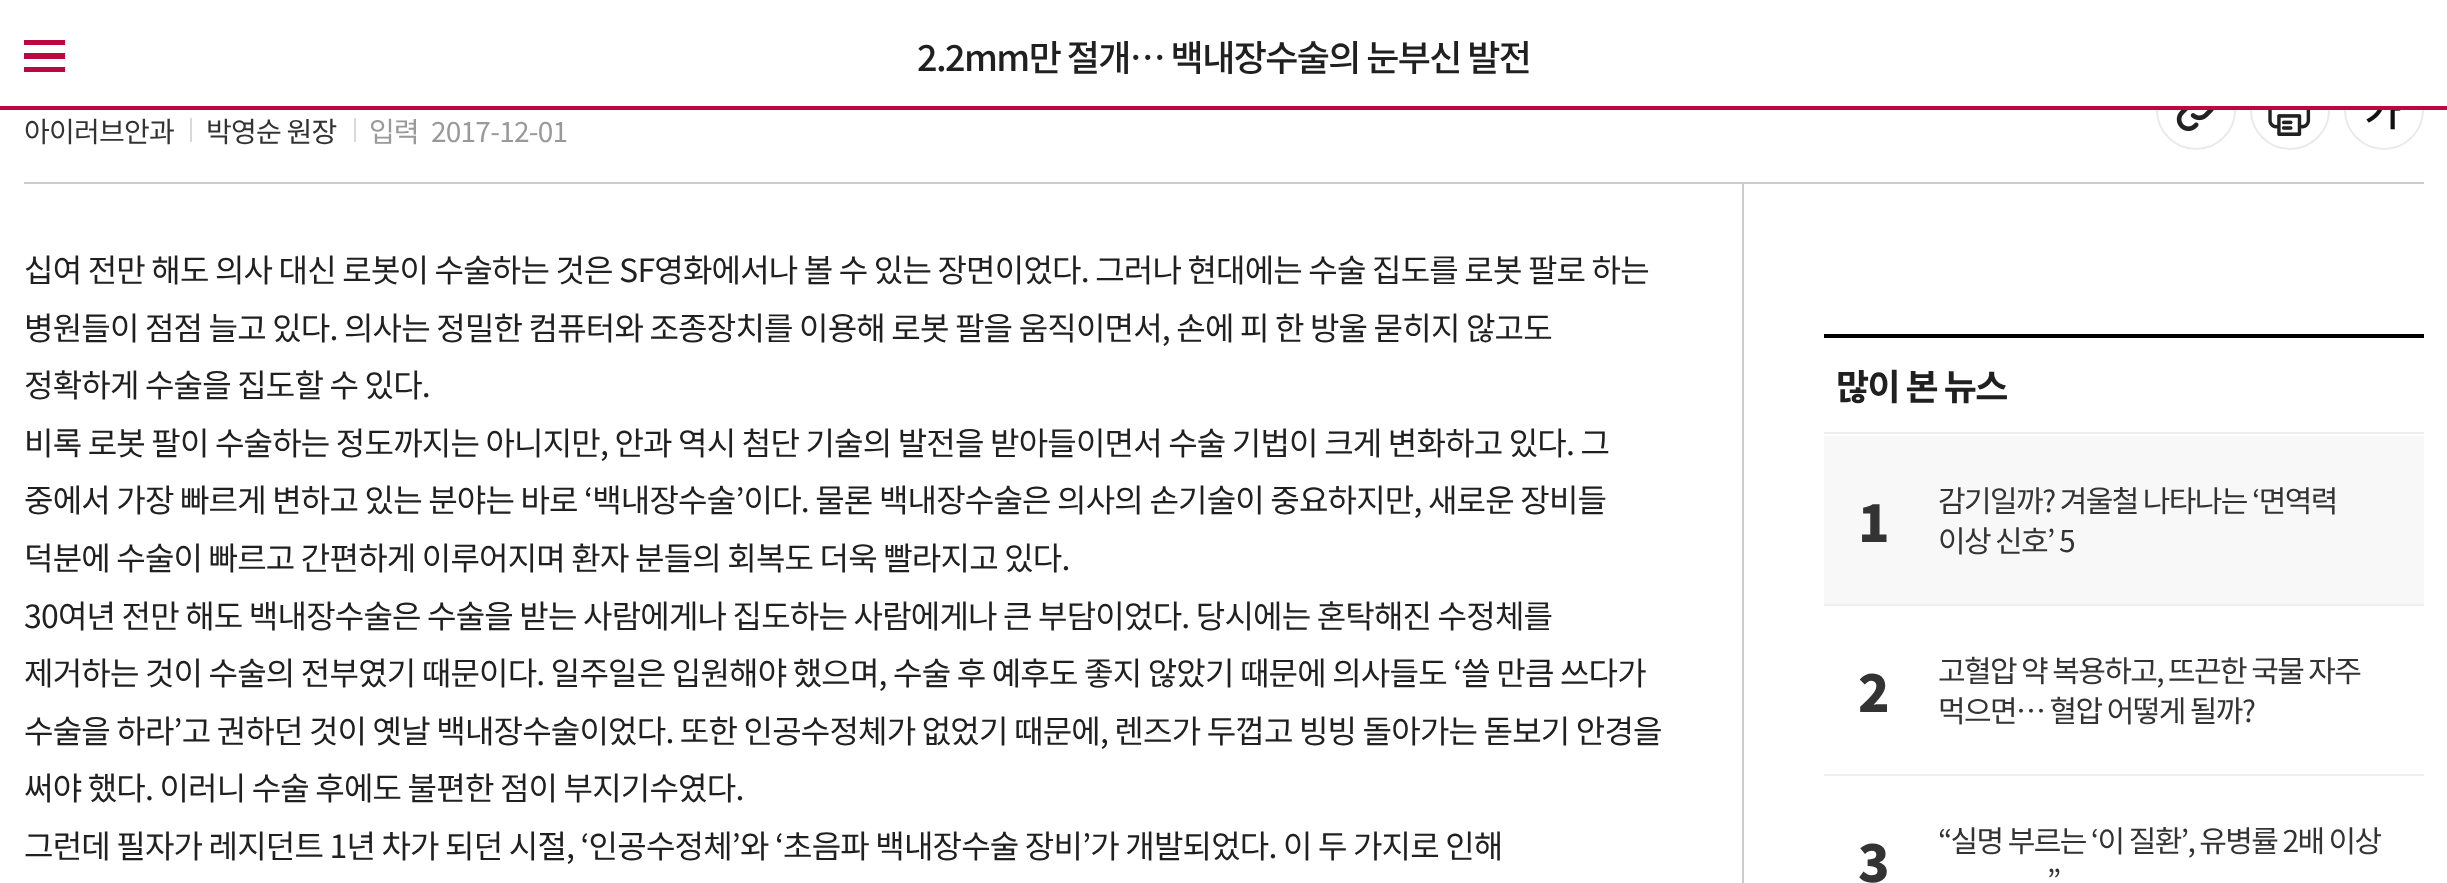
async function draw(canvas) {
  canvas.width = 2447
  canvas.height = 883
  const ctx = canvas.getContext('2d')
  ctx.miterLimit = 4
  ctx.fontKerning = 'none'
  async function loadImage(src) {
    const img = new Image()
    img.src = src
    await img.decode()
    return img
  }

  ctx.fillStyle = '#fff'
  ctx.fillRect(0, 0, 2447, 883)
  ctx.beginPath()
  ctx.arc(2196, 110, 39, 0, 2 * Math.PI)
  ctx.strokeStyle = '#eaeaea'
  ctx.lineWidth = 2
  ctx.stroke()
  ctx.beginPath()
  ctx.arc(2290, 110, 39, 0, 2 * Math.PI)
  ctx.stroke()
  ctx.beginPath()
  ctx.arc(2384, 110, 39, 0, 2 * Math.PI)
  ctx.stroke()
  ctx.fillRect(2156, 70, 268, 36)
  ctx.fillStyle = '#bb0842'
  ctx.fillRect(0, 106, 2447, 4)
  ctx.beginPath()
  ctx.moveTo(24, 72)
  ctx.lineTo(65, 72)
  ctx.lineTo(65, 67)
  ctx.lineTo(24, 67)
  ctx.closePath()
  ctx.moveTo(24, 59)
  ctx.lineTo(65, 59)
  ctx.lineTo(65, 53)
  ctx.lineTo(24, 53)
  ctx.closePath()
  ctx.moveTo(24, 40)
  ctx.lineTo(24, 45)
  ctx.lineTo(65, 45)
  ctx.lineTo(65, 40)
  ctx.closePath()
  ctx.fill()
  ctx.letterSpacing = '-1.6px'
  ctx.font = '500 36px Noto Sans KR'
  ctx.fillStyle = '#202020'
  ctx.fillText('2.2mm만 절개… 백내장수술의 눈부신 발전', 917, 71)
  ctx.fillStyle = '#cbcbcb'
  ctx.fillRect(24, 182, 2400, 2)
  ctx.letterSpacing = '-0.75px'
  ctx.font = '28px Noto Sans KR'
  ctx.fillStyle = '#333'
  ctx.fillText('아이러브안과', 24, 142)
  ctx.fillStyle = '#d9d9d9'
  ctx.fillRect(190, 118, 2, 24)
  ctx.fillStyle = '#333'
  ctx.fillText('박영순 원장', 206, 142)
  ctx.fillStyle = '#d9d9d9'
  ctx.fillRect(354, 118, 2, 24)
  ctx.letterSpacing = '-1px'
  ctx.fillStyle = '#999'
  ctx.fillText('입력', 369, 142)
  ctx.letterSpacing = '-0.75px'
  ctx.fillText('2017-12-01', 431, 142)
  ctx.drawImage(await loadImage('image0.png'), 2176, 110, 38, 22)
  ctx.drawImage(await loadImage('image1.png'), 2268, 110, 43, 26)
  ctx.drawImage(await loadImage('image2.png'), 2366, 110, 35, 20)
  ctx.fillStyle = '#cbcbcb'
  ctx.fillRect(1742, 184, 2, 699)
  ctx.letterSpacing = '-0.8px'
  ctx.font = '32px Noto Sans KR'
  ctx.fillStyle = '#202020'
  ctx.fillText('십여 전만 해도 의사 대신 로봇이 수술하는 것은 SF영화에서나 볼 수 있는 장면이었다. 그러나 현대에는 수술 집도를 로봇 팔로 하는', 24, 282)
  ctx.fillText('병원들이 점점 늘고 있다. 의사는 정밀한 컴퓨터와 조종장치를 이용해 로봇 팔을 움직이면서, 손에 피 한 방울 묻히지 않고도', 24, 340)
  ctx.fillText('정확하게 수술을 집도할 수 있다.', 24, 397)
  ctx.fillText('비록 로봇 팔이 수술하는 정도까지는 아니지만, 안과 역시 첨단 기술의 발전을 받아들이면서 수술 기법이 크게 변화하고 있다. 그', 24, 455)
  ctx.fillText('중에서 가장 빠르게 변하고 있는 분야는 바로 ‘백내장수술’이다. 물론 백내장수술은 의사의 손기술이 중요하지만, 새로운 장비들', 24, 512)
  ctx.fillText('덕분에 수술이 빠르고 간편하게 이루어지며 환자 분들의 회복도 더욱 빨라지고 있다.', 24, 570)
  ctx.fillText('30여년 전만 해도 백내장수술은 수술을 받는 사람에게나 집도하는 사람에게나 큰 부담이었다. 당시에는 혼탁해진 수정체를', 24, 628)
  ctx.fillText('제거하는 것이 수술의 전부였기 때문이다. 일주일은 입원해야 했으며, 수술 후 예후도 좋지 않았기 때문에 의사들도 ‘쓸 만큼 쓰다가', 24, 685)
  ctx.fillText('수술을 하라’고 권하던 것이 옛날 백내장수술이었다. 또한 인공수정체가 없었기 때문에, 렌즈가 두껍고 빙빙 돌아가는 돋보기 안경을', 24, 743)
  ctx.fillText('써야 했다. 이러니 수술 후에도 불편한 점이 부지기수였다.', 24, 800)
  ctx.fillText('그런데 필자가 레지던트 1년 차가 되던 시절, ‘인공수정체’와 ‘초음파 백내장수술 장비’가 개발되었다. 이 두 가지로 인해', 24, 858)
  ctx.fillStyle = '#000'
  ctx.fillRect(1824, 334, 600, 4)
  ctx.fillStyle = '#efeff0'
  ctx.fillRect(1824, 432, 600, 2)
  ctx.letterSpacing = '-1.6px'
  ctx.font = 'bold 36px Noto Sans KR'
  ctx.fillStyle = '#202020'
  ctx.fillText('많이 본 뉴스', 1836, 400)
  ctx.fillStyle = '#f8f8f8'
  ctx.fillRect(1824, 436, 600, 168)
  ctx.fillStyle = '#efeff0'
  ctx.fillRect(1824, 604, 600, 2)
  ctx.font = '900 52px Noto Sans KR'
  ctx.fillStyle = '#333'
  ctx.fillText('1', 1858, 542)
  ctx.font = '30px Noto Sans KR'
  ctx.fillText('감기일까? 겨울철 나타나는 ‘면역력', 1938, 512)
  ctx.fillText('이상 신호’ 5', 1938, 552)
  ctx.fillStyle = '#efeff0'
  ctx.fillRect(1824, 774, 600, 2)
  ctx.font = '900 52px Noto Sans KR'
  ctx.fillStyle = '#333'
  ctx.fillText('2', 1858, 712)
  ctx.font = '30px Noto Sans KR'
  ctx.fillText('고혈압 약 복용하고, 뜨끈한 국물 자주', 1938, 682)
  ctx.fillText('먹으면… 혈압 어떻게 될까?', 1938, 722)
  ctx.font = '900 52px Noto Sans KR'
  ctx.fillText('3', 1858, 882)
  ctx.font = '30px Noto Sans KR'
  ctx.fillText('“실명 부르는 ‘이 질환’, 유병률 2배 이상', 1938, 852)
  ctx.fillText('”', 2047, 892)
}

draw(document.querySelector('canvas'))
